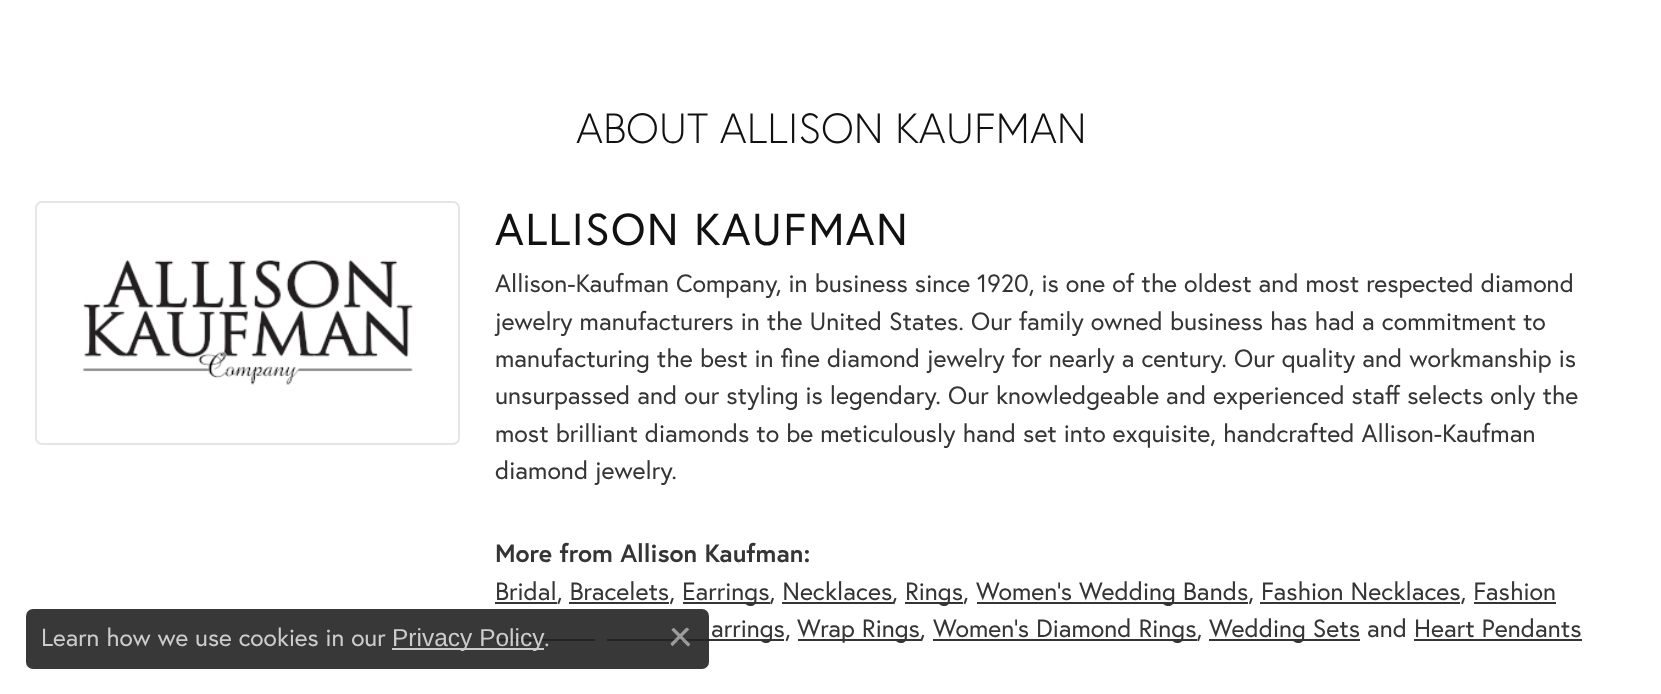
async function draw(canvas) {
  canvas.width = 1661
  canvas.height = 694
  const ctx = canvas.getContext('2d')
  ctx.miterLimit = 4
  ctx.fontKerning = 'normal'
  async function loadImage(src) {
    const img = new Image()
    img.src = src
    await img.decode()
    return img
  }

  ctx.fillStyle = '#fff'
  ctx.fillRect(0, 0, 1661, 694)
  ctx.fillStyle = '#353535'
  ctx.fillRect(495, 639, 100, 2)
  ctx.fillRect(607, 639, 177, 2)
  ctx.fillStyle = '#222222e6'
  ctx.beginPath()
  ctx.roundRect(26, 609, 683, 60, 7)
  ctx.fill()
  ctx.font = '24.5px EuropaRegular'
  ctx.fillStyle = '#ccc'
  ctx.fillText('Learn how we use cookies in our', 41, 646)
  ctx.fillRect(392, 648, 152, 2)
  ctx.font = '24.5px Liberation Sans'
  ctx.fillText('Privacy Policy', 392, 646)
  ctx.font = '24.5px EuropaRegular'
  ctx.fillText('.', 544, 646)
  ctx.drawImage(await loadImage('image0.png'), 670, 627, 21, 20)
  ctx.font = '300 42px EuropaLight'
  ctx.fillStyle = '#111'
  ctx.fillText('ABOUT ALLISON KAUFMAN', 576, 143)
  ctx.beginPath()
  ctx.roundRect(36, 202, 423, 242, 6)
  ctx.strokeStyle = '#e5e5e5'
  ctx.lineWidth = 2
  ctx.stroke()
  ctx.drawImage(await loadImage('image1.png'), 83, 260, 330, 125)
  ctx.letterSpacing = '1.4px'
  ctx.font = '44.75px EuropaRegular'
  ctx.fillText('ALLISON KAUFMAN', 495, 245)
  ctx.letterSpacing = '0px'
  ctx.font = '24.95px EuropaRegular'
  ctx.fillStyle = '#353535'
  ctx.fillText('Allison-Kaufman Company, in business since 1920, is one of the oldest and most respected diamond', 495, 292)
  ctx.fillText('jewelry manufacturers in the United States. Our family owned business has had a commitment to', 495, 330)
  ctx.fillText('manufacturing the best in fine diamond jewelry for nearly a century. Our quality and workmanship is', 495, 367)
  ctx.fillText('unsurpassed and our styling is legendary. Our knowledgeable and experienced staff selects only the', 495, 404)
  ctx.fillText('most brilliant diamonds to be meticulously hand set into exquisite, handcrafted Allison-Kaufman', 495, 442)
  ctx.fillText('diamond jewelry.', 495, 479)
  ctx.font = 'bold 24.95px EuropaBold'
  ctx.fillText('More from Allison Kaufman:', 495, 562)
  ctx.fillRect(495, 602, 62, 2)
  ctx.font = '24.95px EuropaRegular'
  ctx.fillText('Bridal, Bracelets,', 495, 600)
  ctx.fillRect(569, 602, 100, 2)
  ctx.fillRect(683, 602, 87, 2)
  ctx.fillText('Earrings, Necklaces', 682, 600)
  ctx.fillRect(782, 602, 111, 2)
  ctx.fillText(',', 892, 600)
  ctx.fillRect(905, 602, 58, 2)
  ctx.fillText('Rings,', 905, 600)
  ctx.fillRect(977, 602, 271, 2)
  ctx.fillText('Women\'s Wedding Bands, Fashion Necklaces, Fashion', 976, 600)
  ctx.fillRect(1260, 602, 200, 2)
  ctx.fillRect(1474, 602, 82, 2)
  ctx.fillText('arrings,', 711, 637)
  ctx.fillRect(798, 639, 123, 2)
  ctx.fillText('Wrap Rings,', 797, 637)
  ctx.fillRect(933, 639, 264, 2)
  ctx.fillText('Women\'s Diamond Rings,', 933, 637)
  ctx.fillRect(1209, 639, 151, 2)
  ctx.fillText('Wedding Sets and Heart Pendants', 1209, 637)
  ctx.fillRect(1414, 639, 168, 2)
}

draw(document.querySelector('canvas'))
